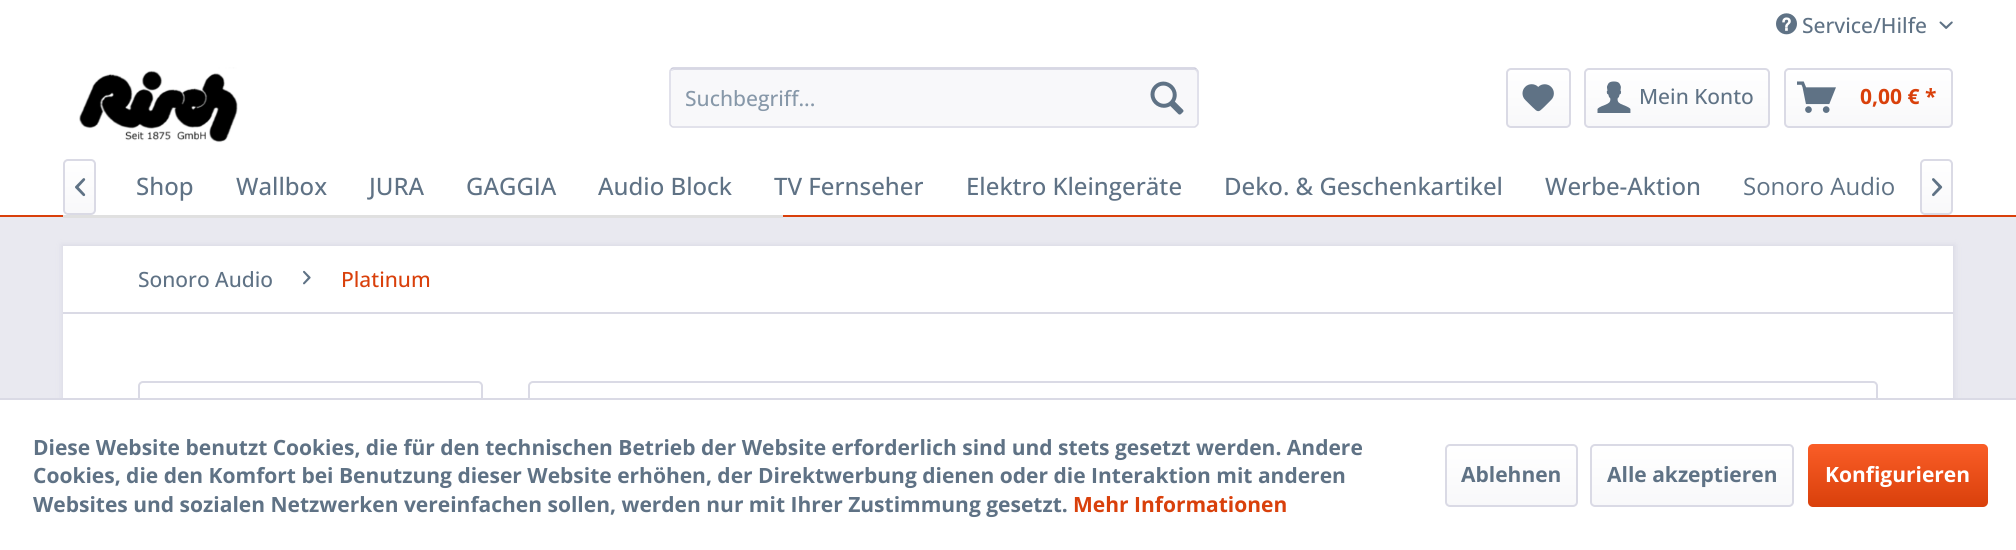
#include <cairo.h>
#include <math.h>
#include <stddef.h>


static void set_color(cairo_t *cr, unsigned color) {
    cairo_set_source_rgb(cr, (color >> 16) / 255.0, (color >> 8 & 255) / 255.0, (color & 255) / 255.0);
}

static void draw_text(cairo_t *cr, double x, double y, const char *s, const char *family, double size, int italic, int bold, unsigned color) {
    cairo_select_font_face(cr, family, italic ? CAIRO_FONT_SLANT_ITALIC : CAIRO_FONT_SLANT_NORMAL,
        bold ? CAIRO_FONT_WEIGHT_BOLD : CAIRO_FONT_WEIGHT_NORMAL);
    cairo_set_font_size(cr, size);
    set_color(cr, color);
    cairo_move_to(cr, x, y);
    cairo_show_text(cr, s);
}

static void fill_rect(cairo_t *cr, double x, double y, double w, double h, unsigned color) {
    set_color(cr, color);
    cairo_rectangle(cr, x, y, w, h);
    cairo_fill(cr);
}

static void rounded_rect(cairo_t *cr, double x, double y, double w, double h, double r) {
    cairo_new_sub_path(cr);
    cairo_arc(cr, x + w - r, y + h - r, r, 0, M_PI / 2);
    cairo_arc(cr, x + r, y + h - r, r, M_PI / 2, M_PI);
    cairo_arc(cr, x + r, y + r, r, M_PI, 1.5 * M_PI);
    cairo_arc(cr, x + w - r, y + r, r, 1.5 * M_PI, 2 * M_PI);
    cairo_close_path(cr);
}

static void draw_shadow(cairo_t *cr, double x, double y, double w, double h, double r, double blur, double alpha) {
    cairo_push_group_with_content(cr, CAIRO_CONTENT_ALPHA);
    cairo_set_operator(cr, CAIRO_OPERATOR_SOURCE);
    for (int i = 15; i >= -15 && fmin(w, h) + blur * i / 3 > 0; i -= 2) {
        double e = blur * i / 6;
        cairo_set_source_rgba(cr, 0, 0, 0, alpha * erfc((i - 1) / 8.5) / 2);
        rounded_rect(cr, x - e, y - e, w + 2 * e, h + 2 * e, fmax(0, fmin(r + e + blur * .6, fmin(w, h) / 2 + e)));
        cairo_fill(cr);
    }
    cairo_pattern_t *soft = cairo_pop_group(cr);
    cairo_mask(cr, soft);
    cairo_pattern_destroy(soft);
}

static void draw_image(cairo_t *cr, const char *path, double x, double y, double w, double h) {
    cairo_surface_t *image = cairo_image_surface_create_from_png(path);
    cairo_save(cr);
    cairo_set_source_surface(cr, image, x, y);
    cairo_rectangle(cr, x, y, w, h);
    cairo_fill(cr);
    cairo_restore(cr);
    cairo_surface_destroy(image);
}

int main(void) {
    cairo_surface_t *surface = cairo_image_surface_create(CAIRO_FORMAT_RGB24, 2016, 550);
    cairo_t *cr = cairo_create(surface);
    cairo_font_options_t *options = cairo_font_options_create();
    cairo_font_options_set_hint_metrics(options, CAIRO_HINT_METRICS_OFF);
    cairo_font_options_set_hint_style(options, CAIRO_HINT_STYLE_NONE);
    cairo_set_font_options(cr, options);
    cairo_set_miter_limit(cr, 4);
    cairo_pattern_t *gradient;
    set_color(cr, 0xE9E9F0);
    cairo_paint(cr);
    fill_rect(cr, 0, 0, 2016, 215, 0xFFFFFF);
    draw_image(cr, "assets/img1.png", 1776, 13, 21, 22);
    draw_text(cr, 1802, 33, "Service/Hilfe", "Open Sans Medium", 21, 0, 0, 0x5F7285);
    draw_image(cr, "assets/img2.png", 1939, 21, 14, 8);
    draw_image(cr, "assets/img3.png", 79, 67, 159, 76);
    set_color(cr, 0xF8F8FA);
    rounded_rect(cr, 669, 68, 530, 60, 5);
    cairo_fill(cr);
    set_color(cr, 0xDADAE5);
    cairo_new_path(cr);
    cairo_move_to(cr, 674, 70);
    cairo_line_to(cr, 1194, 70);
    cairo_curve_to(cr, 1196, 70, 1197, 72, 1197, 74);
    cairo_line_to(cr, 1197, 72);
    cairo_curve_to(cr, 1197, 70, 1196, 69, 1194, 69);
    cairo_line_to(cr, 674, 69);
    cairo_curve_to(cr, 673, 69, 671, 70, 671, 71);
    cairo_close_path(cr);
    cairo_fill(cr);
    cairo_new_path(cr);
    cairo_move_to(cr, 671, 69.5);
    cairo_curve_to(cr, 671.5, 68.5, 672.5, 68, 673.5, 68);
    cairo_line_to(cr, 1194, 68);
    cairo_curve_to(cr, 1195, 68, 1196, 68.5, 1196.5, 69.5);
    set_color(cr, 0xCBCBDB);
    cairo_set_line_width(cr, 1.5);
    cairo_stroke(cr);
    cairo_new_path(cr);
    cairo_move_to(cr, 1196.5, 69.5);
    cairo_curve_to(cr, 1197.5, 70, 1198, 71, 1198, 72);
    cairo_line_to(cr, 1198, 123);
    cairo_curve_to(cr, 1198, 124, 1197.5, 125, 1196.5, 125.5);
    cairo_curve_to(cr, 1196, 126.5, 1195, 127, 1194, 127);
    cairo_line_to(cr, 673.5, 127);
    cairo_curve_to(cr, 672.5, 127, 671.5, 126.5, 671, 125.5);
    cairo_curve_to(cr, 670, 125, 670, 124, 670, 123);
    cairo_line_to(cr, 670, 72);
    cairo_curve_to(cr, 670, 71, 670, 70, 671, 69.5);
    set_color(cr, 0xDADAE5);
    cairo_stroke(cr);
    draw_text(cr, 685, 106, "Suchbegriff...", "Open Sans Medium", 21, 0, 0, 0x8798A9);
    draw_image(cr, "assets/img4.png", 1150, 81, 34, 34);
    gradient = cairo_pattern_create_linear(1538, 69, 1538, 126);
    cairo_pattern_add_color_stop_rgba(gradient, 0, 1, 1, 1, 1);
    cairo_pattern_add_color_stop_rgba(gradient, 1, 0.973, 0.973, 0.98, 1);
    cairo_set_source(cr, gradient);
    cairo_pattern_destroy(gradient);
    rounded_rect(cr, 1508, 69, 61, 57, 3);
    cairo_fill(cr);
    rounded_rect(cr, 1507, 69, 63, 58, 4);
    set_color(cr, 0xDADAE5);
    cairo_set_line_width(cr, 2);
    cairo_stroke(cr);
    draw_image(cr, "assets/img5.png", 1522, 84, 32, 28);
    gradient = cairo_pattern_create_linear(1677, 69, 1677, 126);
    cairo_pattern_add_color_stop_rgba(gradient, 0, 1, 1, 1, 1);
    cairo_pattern_add_color_stop_rgba(gradient, 1, 0.973, 0.973, 0.98, 1);
    cairo_set_source(cr, gradient);
    cairo_pattern_destroy(gradient);
    rounded_rect(cr, 1586, 69, 183, 57, 3);
    cairo_fill(cr);
    rounded_rect(cr, 1585, 69, 184, 58, 4);
    set_color(cr, 0xDADAE5);
    cairo_stroke(cr);
    draw_image(cr, "assets/img6.png", 1597, 81, 34, 32);
    draw_text(cr, 1639, 104, "Mein Konto", "Open Sans Medium", 21, 0, 0, 0x5F7285);
    gradient = cairo_pattern_create_linear(1868, 69, 1868, 126);
    cairo_pattern_add_color_stop_rgba(gradient, 0, 1, 1, 1, 1);
    cairo_pattern_add_color_stop_rgba(gradient, 1, 0.973, 0.973, 0.98, 1);
    cairo_set_source(cr, gradient);
    cairo_pattern_destroy(gradient);
    rounded_rect(cr, 1785, 69, 167, 57, 3);
    cairo_fill(cr);
    rounded_rect(cr, 1785, 69, 167, 58, 4);
    set_color(cr, 0xDADAE5);
    cairo_stroke(cr);
    draw_image(cr, "assets/img7.png", 1797, 81, 39, 32);
    draw_text(cr, 1860, 104, "0,00 € *", "Open Sans", 21, 0, 1, 0xD9400B);
    fill_rect(cr, 0, 215, 2016, 2, 0xD9400B);
    gradient = cairo_pattern_create_linear(80, 161, 80, 213);
    cairo_pattern_add_color_stop_rgba(gradient, 0, 1, 1, 1, 1);
    cairo_pattern_add_color_stop_rgba(gradient, 1, 0.973, 0.973, 0.98, 1);
    cairo_set_source(cr, gradient);
    cairo_pattern_destroy(gradient);
    rounded_rect(cr, 65, 161, 30, 52, 3);
    cairo_fill(cr);
    rounded_rect(cr, 64, 160, 31, 54, 4);
    set_color(cr, 0xDADAE5);
    cairo_stroke(cr);
    draw_image(cr, "assets/img8.png", 75, 178, 11, 19);
    draw_text(cr, 136, 195, "Shop", "Open Sans Medium", 24, 0, 0, 0x5F7285);
    draw_text(cr, 236, 195, "Wallbox", "Open Sans Medium", 24, 0, 0, 0x5F7285);
    draw_text(cr, 369, 195, "JURA", "Open Sans Medium", 24, 0, 0, 0x5F7285);
    draw_text(cr, 466, 195, "GAGGIA", "Open Sans Medium", 24, 0, 0, 0x5F7285);
    draw_text(cr, 598, 195, "Audio Block", "Open Sans Medium", 24, 0, 0, 0x5F7285);
    draw_text(cr, 774, 195, "TV Fernseher", "Open Sans Medium", 24, 0, 0, 0x5F7285);
    draw_text(cr, 966, 195, "Elektro Kleingeräte", "Open Sans Medium", 24, 0, 0, 0x5F7285);
    draw_text(cr, 1224, 195, "Deko. & Geschenkartikel", "Open Sans Medium", 24, 0, 0, 0x5F7285);
    draw_text(cr, 1545, 195, "Werbe-Aktion", "Open Sans Medium", 24, 0, 0, 0x5F7285);
    draw_text(cr, 1743, 195, "Sonoro Audio", "Open Sans", 24, 0, 0, 0x5F7285);
    gradient = cairo_pattern_create_linear(1937, 161, 1937, 213);
    cairo_pattern_add_color_stop_rgba(gradient, 0, 1, 1, 1, 1);
    cairo_pattern_add_color_stop_rgba(gradient, 1, 0.973, 0.973, 0.98, 1);
    cairo_set_source(cr, gradient);
    cairo_pattern_destroy(gradient);
    rounded_rect(cr, 1922, 161, 30, 52, 3);
    cairo_fill(cr);
    rounded_rect(cr, 1921, 160, 31, 54, 4);
    set_color(cr, 0xDADAE5);
    cairo_stroke(cr);
    draw_image(cr, "assets/img9.png", 1932, 178, 11, 19);
    fill_rect(cr, 63, 215, 720, 3, 0xE0E0E0);
    set_color(cr, 0xDADAE5);
    draw_shadow(cr, 62, 245, 1893, 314, 0, 3, 1);
    fill_rect(cr, 63, 246, 1890, 152, 0xFFFFFF);
    fill_rect(cr, 63, 312, 1890, 2, 0xDADAE5);
    draw_text(cr, 138, 287, "Sonoro Audio", "Open Sans Medium", 21, 0, 0, 0x5F7285);
    draw_image(cr, "assets/img10.png", 303, 270, 8, 15);
    draw_text(cr, 341, 287, "Platinum", "Open Sans Medium", 21, 0, 0, 0xD9400B);
    rounded_rect(cr, 139, 382, 343, 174, 4);
    set_color(cr, 0xDADAE5);
    cairo_stroke(cr);
    rounded_rect(cr, 529, 382, 1348, 156, 4);
    cairo_stroke(cr);
    fill_rect(cr, 0, 400, 2016, 150, 0xFFFFFF);
    fill_rect(cr, 0, 398, 2016, 2, 0xDADAE5);
    draw_text(cr, 33, 455, "Diese Website benutzt Cookies, die für den technischen Betrieb der Website erforderlich sind und stets gesetzt werden. Andere", "Open Sans", 21, 0, 1, 0x5F7285);
    draw_text(cr, 33, 483, "Cookies, die den Komfort bei Benutzung dieser Website erhöhen, der Direktwerbung dienen oder die Interaktion mit anderen", "Open Sans", 21, 0, 1, 0x5F7285);
    draw_text(cr, 33, 512, "Websites und sozialen Netzwerken vereinfachen sollen, werden nur mit Ihrer Zustimmung gesetzt.", "Open Sans", 21, 0, 1, 0x5F7285);
    draw_text(cr, 1073, 512, "Mehr Informationen", "Open Sans", 21, 0, 1, 0xD9400B);
    gradient = cairo_pattern_create_linear(1511, 446, 1511, 506);
    cairo_pattern_add_color_stop_rgba(gradient, 0, 1, 1, 1, 1);
    cairo_pattern_add_color_stop_rgba(gradient, 1, 0.973, 0.973, 0.98, 1);
    cairo_set_source(cr, gradient);
    cairo_pattern_destroy(gradient);
    rounded_rect(cr, 1446, 446, 131, 60, 3);
    cairo_fill(cr);
    rounded_rect(cr, 1446, 445, 131, 61, 4);
    set_color(cr, 0xDADAE5);
    cairo_stroke(cr);
    draw_text(cr, 1461, 482, "Ablehnen", "Open Sans", 21, 0, 1, 0x5F7285);
    gradient = cairo_pattern_create_linear(1692, 446, 1692, 506);
    cairo_pattern_add_color_stop_rgba(gradient, 0, 1, 1, 1, 1);
    cairo_pattern_add_color_stop_rgba(gradient, 1, 0.973, 0.973, 0.98, 1);
    cairo_set_source(cr, gradient);
    cairo_pattern_destroy(gradient);
    rounded_rect(cr, 1592, 446, 201, 60, 3);
    cairo_fill(cr);
    rounded_rect(cr, 1591, 445, 202, 61, 4);
    set_color(cr, 0xDADAE5);
    cairo_stroke(cr);
    draw_text(cr, 1607, 482, "Alle akzeptieren", "Open Sans", 21, 0, 1, 0x5F7285);
    gradient = cairo_pattern_create_linear(1898, 444, 1898, 507);
    cairo_pattern_add_color_stop_rgba(gradient, 0, 0.98, 0.365, 0.153, 1);
    cairo_pattern_add_color_stop_rgba(gradient, 1, 0.851, 0.251, 0.043, 1);
    cairo_set_source(cr, gradient);
    cairo_pattern_destroy(gradient);
    rounded_rect(cr, 1808, 444, 180, 63, 5);
    cairo_fill(cr);
    draw_text(cr, 1825, 482, "Konfigurieren", "Open Sans", 21, 0, 1, 0xFFFFFF);
    cairo_surface_write_to_png(surface, "output.png");
    cairo_font_options_destroy(options);
    cairo_destroy(cr);
    cairo_surface_destroy(surface);
    return 0;
}
